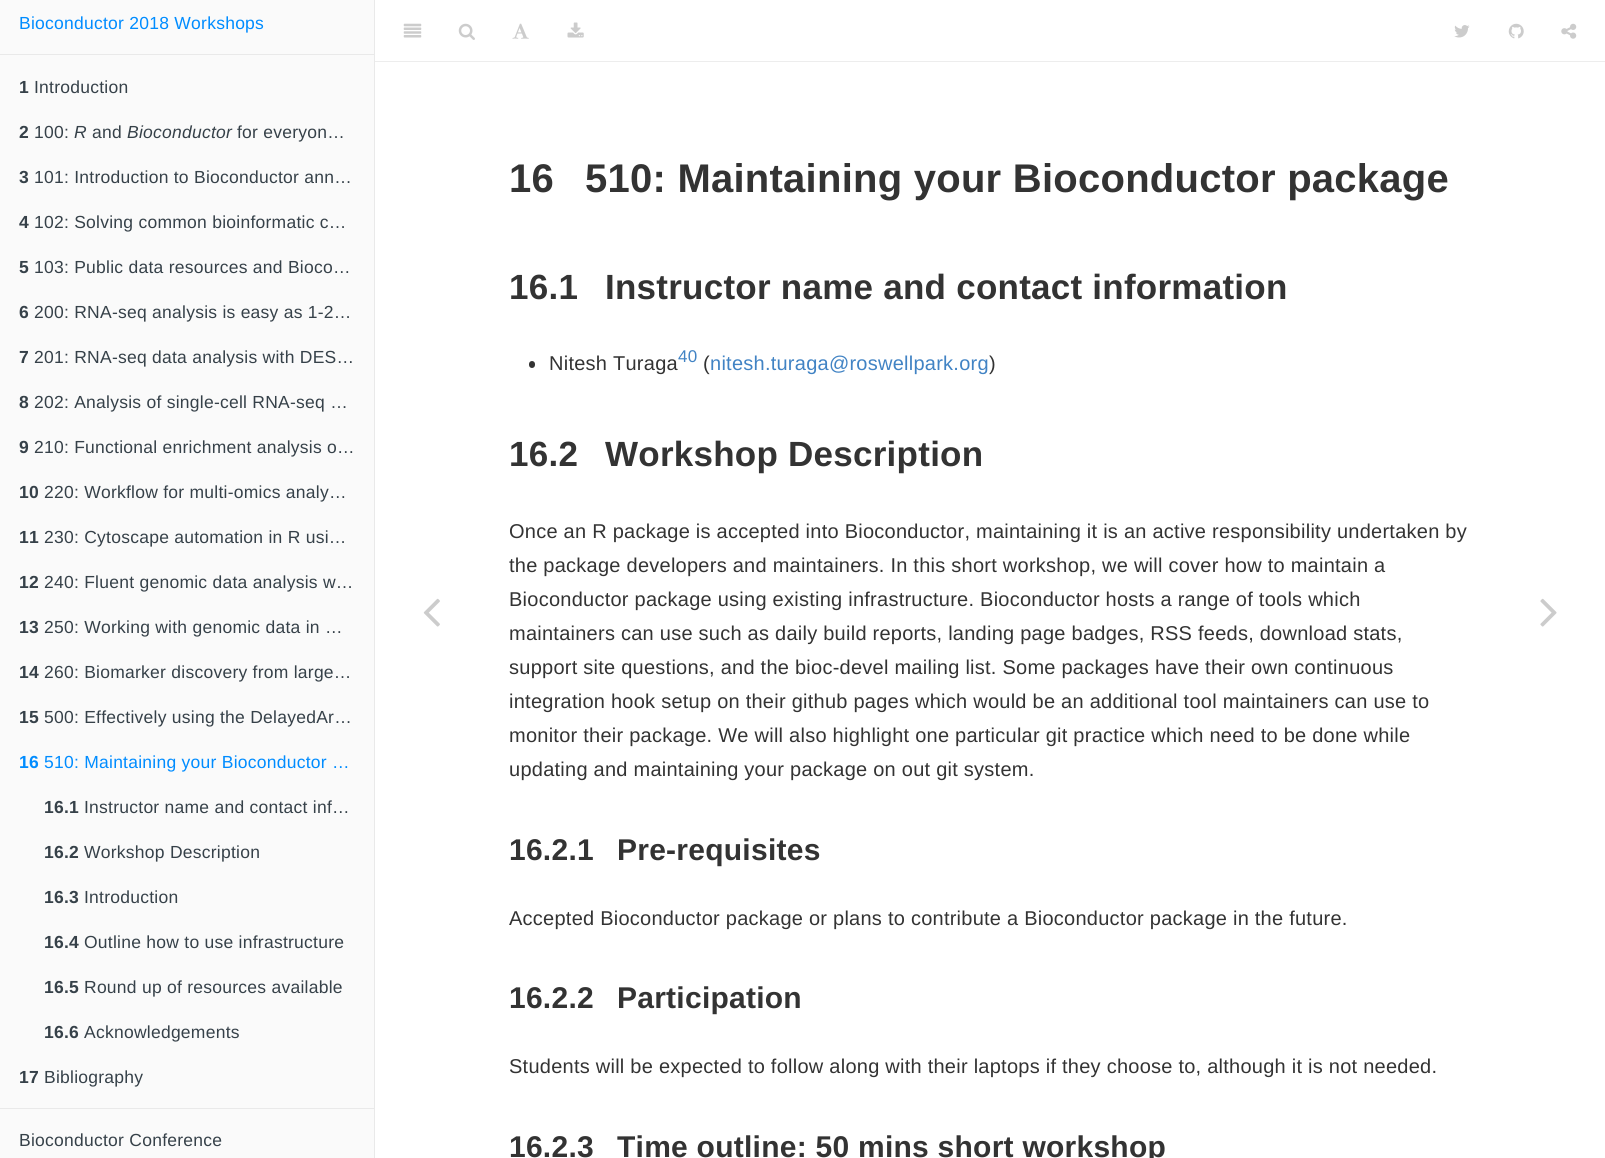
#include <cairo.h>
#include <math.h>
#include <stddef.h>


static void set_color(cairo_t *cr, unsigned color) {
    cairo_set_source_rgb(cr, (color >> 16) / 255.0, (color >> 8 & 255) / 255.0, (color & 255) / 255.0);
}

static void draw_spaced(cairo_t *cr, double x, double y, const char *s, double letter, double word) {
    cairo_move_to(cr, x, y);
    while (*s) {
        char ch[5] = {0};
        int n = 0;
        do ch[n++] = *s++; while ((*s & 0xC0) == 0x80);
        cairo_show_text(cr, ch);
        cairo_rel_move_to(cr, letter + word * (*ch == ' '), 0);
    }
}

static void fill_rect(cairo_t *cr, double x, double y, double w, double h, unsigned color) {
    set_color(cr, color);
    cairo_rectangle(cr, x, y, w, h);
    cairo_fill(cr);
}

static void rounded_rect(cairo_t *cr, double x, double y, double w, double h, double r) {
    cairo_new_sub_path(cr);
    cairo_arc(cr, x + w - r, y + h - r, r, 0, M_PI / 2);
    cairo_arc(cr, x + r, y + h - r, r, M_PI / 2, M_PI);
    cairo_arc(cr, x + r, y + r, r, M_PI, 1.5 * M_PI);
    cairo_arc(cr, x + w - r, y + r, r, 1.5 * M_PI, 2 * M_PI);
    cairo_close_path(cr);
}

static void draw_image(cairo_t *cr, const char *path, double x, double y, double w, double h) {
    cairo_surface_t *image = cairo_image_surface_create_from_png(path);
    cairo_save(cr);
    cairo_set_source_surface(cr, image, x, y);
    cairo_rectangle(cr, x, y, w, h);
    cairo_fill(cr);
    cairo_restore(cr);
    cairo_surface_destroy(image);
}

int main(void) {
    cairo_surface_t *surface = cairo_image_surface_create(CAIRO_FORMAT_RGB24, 1605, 1158);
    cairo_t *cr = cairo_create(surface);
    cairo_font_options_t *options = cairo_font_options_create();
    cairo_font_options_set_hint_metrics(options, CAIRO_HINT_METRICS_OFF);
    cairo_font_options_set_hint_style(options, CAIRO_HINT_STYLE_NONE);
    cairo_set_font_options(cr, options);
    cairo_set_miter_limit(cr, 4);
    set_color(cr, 0xFFFFFF);
    cairo_paint(cr);
    fill_rect(cr, 0, 0, 374, 1158, 0xFAFAFA);
    fill_rect(cr, 374, 0, 1, 1158, 0xE9E9E9);
    cairo_select_font_face(cr, "Liberation Sans", CAIRO_FONT_SLANT_NORMAL, CAIRO_FONT_WEIGHT_NORMAL);
    cairo_set_font_size(cr, 17.5);
    set_color(cr, 0x008CFF);
    draw_spaced(cr, 19, 29, "Bioconductor 2018 Workshops", 0.25, 0);
    fill_rect(cr, 0, 54, 374, 1, 0xE9E9E9);
    cairo_select_font_face(cr, "Liberation Sans", CAIRO_FONT_SLANT_NORMAL, CAIRO_FONT_WEIGHT_BOLD);
    set_color(cr, 0x364149);
    draw_spaced(cr, 19, 93, "1", 0.25, 0);
    cairo_select_font_face(cr, "Liberation Sans", CAIRO_FONT_SLANT_NORMAL, CAIRO_FONT_WEIGHT_NORMAL);
    draw_spaced(cr, 34, 93, "Introduction", 0.25, 0);
    cairo_select_font_face(cr, "Liberation Sans", CAIRO_FONT_SLANT_NORMAL, CAIRO_FONT_WEIGHT_BOLD);
    draw_spaced(cr, 19, 138, "2", 0.25, 0);
    cairo_select_font_face(cr, "Liberation Sans", CAIRO_FONT_SLANT_NORMAL, CAIRO_FONT_WEIGHT_NORMAL);
    draw_spaced(cr, 34, 138, "100:", 0.25, 0);
    cairo_select_font_face(cr, "Liberation Sans", CAIRO_FONT_SLANT_ITALIC, CAIRO_FONT_WEIGHT_NORMAL);
    draw_spaced(cr, 74, 138, "R", 0.25, 0);
    cairo_select_font_face(cr, "Liberation Sans", CAIRO_FONT_SLANT_NORMAL, CAIRO_FONT_WEIGHT_NORMAL);
    draw_spaced(cr, 92, 138, "and", 0.25, 0);
    cairo_select_font_face(cr, "Liberation Sans", CAIRO_FONT_SLANT_ITALIC, CAIRO_FONT_WEIGHT_NORMAL);
    draw_spaced(cr, 127, 138, "Bioconductor", 0.25, 0);
    cairo_select_font_face(cr, "Liberation Sans", CAIRO_FONT_SLANT_NORMAL, CAIRO_FONT_WEIGHT_NORMAL);
    draw_spaced(cr, 237, 138, "for everyon…", 0.25, 0);
    cairo_select_font_face(cr, "Liberation Sans", CAIRO_FONT_SLANT_NORMAL, CAIRO_FONT_WEIGHT_BOLD);
    draw_spaced(cr, 19, 183, "3", 0.25, 0);
    cairo_select_font_face(cr, "Liberation Sans", CAIRO_FONT_SLANT_NORMAL, CAIRO_FONT_WEIGHT_NORMAL);
    draw_spaced(cr, 34, 183, "101: Introduction to Bioconductor ann…", 0.25, 0);
    cairo_select_font_face(cr, "Liberation Sans", CAIRO_FONT_SLANT_NORMAL, CAIRO_FONT_WEIGHT_BOLD);
    draw_spaced(cr, 19, 228, "4", 0.25, 0);
    cairo_select_font_face(cr, "Liberation Sans", CAIRO_FONT_SLANT_NORMAL, CAIRO_FONT_WEIGHT_NORMAL);
    draw_spaced(cr, 34, 228, "102: Solving common bioinformatic c…", 0.25, 0);
    cairo_select_font_face(cr, "Liberation Sans", CAIRO_FONT_SLANT_NORMAL, CAIRO_FONT_WEIGHT_BOLD);
    draw_spaced(cr, 19, 273, "5", 0.25, 0);
    cairo_select_font_face(cr, "Liberation Sans", CAIRO_FONT_SLANT_NORMAL, CAIRO_FONT_WEIGHT_NORMAL);
    draw_spaced(cr, 34, 273, "103: Public data resources and Bioco…", 0.25, 0);
    cairo_select_font_face(cr, "Liberation Sans", CAIRO_FONT_SLANT_NORMAL, CAIRO_FONT_WEIGHT_BOLD);
    draw_spaced(cr, 19, 318, "6", 0.25, 0);
    cairo_select_font_face(cr, "Liberation Sans", CAIRO_FONT_SLANT_NORMAL, CAIRO_FONT_WEIGHT_NORMAL);
    draw_spaced(cr, 34, 318, "200: RNA-seq analysis is easy as 1-2…", 0.25, 0);
    cairo_select_font_face(cr, "Liberation Sans", CAIRO_FONT_SLANT_NORMAL, CAIRO_FONT_WEIGHT_BOLD);
    draw_spaced(cr, 19, 363, "7", 0.25, 0);
    cairo_select_font_face(cr, "Liberation Sans", CAIRO_FONT_SLANT_NORMAL, CAIRO_FONT_WEIGHT_NORMAL);
    draw_spaced(cr, 34, 363, "201: RNA-seq data analysis with DES…", 0.25, 0);
    cairo_select_font_face(cr, "Liberation Sans", CAIRO_FONT_SLANT_NORMAL, CAIRO_FONT_WEIGHT_BOLD);
    draw_spaced(cr, 19, 408, "8", 0.25, 0);
    cairo_select_font_face(cr, "Liberation Sans", CAIRO_FONT_SLANT_NORMAL, CAIRO_FONT_WEIGHT_NORMAL);
    draw_spaced(cr, 34, 408, "202: Analysis of single-cell RNA-seq …", 0.25, 0);
    cairo_select_font_face(cr, "Liberation Sans", CAIRO_FONT_SLANT_NORMAL, CAIRO_FONT_WEIGHT_BOLD);
    draw_spaced(cr, 19, 453, "9", 0.25, 0);
    cairo_select_font_face(cr, "Liberation Sans", CAIRO_FONT_SLANT_NORMAL, CAIRO_FONT_WEIGHT_NORMAL);
    draw_spaced(cr, 34, 453, "210: Functional enrichment analysis o…", 0.25, 0);
    cairo_select_font_face(cr, "Liberation Sans", CAIRO_FONT_SLANT_NORMAL, CAIRO_FONT_WEIGHT_BOLD);
    draw_spaced(cr, 19, 498, "10", 0.25, 0);
    cairo_select_font_face(cr, "Liberation Sans", CAIRO_FONT_SLANT_NORMAL, CAIRO_FONT_WEIGHT_NORMAL);
    draw_spaced(cr, 44, 498, "220: Workflow for multi-omics analy…", 0.25, 0);
    cairo_select_font_face(cr, "Liberation Sans", CAIRO_FONT_SLANT_NORMAL, CAIRO_FONT_WEIGHT_BOLD);
    draw_spaced(cr, 19, 543, "11", 0.25, 0);
    cairo_select_font_face(cr, "Liberation Sans", CAIRO_FONT_SLANT_NORMAL, CAIRO_FONT_WEIGHT_NORMAL);
    draw_spaced(cr, 44, 543, "230: Cytoscape automation in R usi…", 0.25, 0);
    cairo_select_font_face(cr, "Liberation Sans", CAIRO_FONT_SLANT_NORMAL, CAIRO_FONT_WEIGHT_BOLD);
    draw_spaced(cr, 19, 588, "12", 0.25, 0);
    cairo_select_font_face(cr, "Liberation Sans", CAIRO_FONT_SLANT_NORMAL, CAIRO_FONT_WEIGHT_NORMAL);
    draw_spaced(cr, 44, 588, "240: Fluent genomic data analysis w…", 0.25, 0);
    cairo_select_font_face(cr, "Liberation Sans", CAIRO_FONT_SLANT_NORMAL, CAIRO_FONT_WEIGHT_BOLD);
    draw_spaced(cr, 19, 633, "13", 0.25, 0);
    cairo_select_font_face(cr, "Liberation Sans", CAIRO_FONT_SLANT_NORMAL, CAIRO_FONT_WEIGHT_NORMAL);
    draw_spaced(cr, 44, 633, "250: Working with genomic data in …", 0.25, 0);
    cairo_select_font_face(cr, "Liberation Sans", CAIRO_FONT_SLANT_NORMAL, CAIRO_FONT_WEIGHT_BOLD);
    draw_spaced(cr, 19, 678, "14", 0.25, 0);
    cairo_select_font_face(cr, "Liberation Sans", CAIRO_FONT_SLANT_NORMAL, CAIRO_FONT_WEIGHT_NORMAL);
    draw_spaced(cr, 44, 678, "260: Biomarker discovery from large…", 0.25, 0);
    cairo_select_font_face(cr, "Liberation Sans", CAIRO_FONT_SLANT_NORMAL, CAIRO_FONT_WEIGHT_BOLD);
    draw_spaced(cr, 19, 723, "15", 0.25, 0);
    cairo_select_font_face(cr, "Liberation Sans", CAIRO_FONT_SLANT_NORMAL, CAIRO_FONT_WEIGHT_NORMAL);
    draw_spaced(cr, 44, 723, "500: Effectively using the DelayedAr…", 0.25, 0);
    cairo_select_font_face(cr, "Liberation Sans", CAIRO_FONT_SLANT_NORMAL, CAIRO_FONT_WEIGHT_BOLD);
    set_color(cr, 0x008CFF);
    draw_spaced(cr, 19, 768, "16", 0.25, 0);
    cairo_select_font_face(cr, "Liberation Sans", CAIRO_FONT_SLANT_NORMAL, CAIRO_FONT_WEIGHT_NORMAL);
    draw_spaced(cr, 44, 768, "510: Maintaining your Bioconductor …", 0.25, 0);
    cairo_select_font_face(cr, "Liberation Sans", CAIRO_FONT_SLANT_NORMAL, CAIRO_FONT_WEIGHT_BOLD);
    set_color(cr, 0x364149);
    draw_spaced(cr, 44, 813, "16.1", 0.25, 0);
    cairo_select_font_face(cr, "Liberation Sans", CAIRO_FONT_SLANT_NORMAL, CAIRO_FONT_WEIGHT_NORMAL);
    draw_spaced(cr, 84, 813, "Instructor name and contact inf…", 0.25, 0);
    cairo_select_font_face(cr, "Liberation Sans", CAIRO_FONT_SLANT_NORMAL, CAIRO_FONT_WEIGHT_BOLD);
    draw_spaced(cr, 44, 858, "16.2", 0.25, 0);
    cairo_select_font_face(cr, "Liberation Sans", CAIRO_FONT_SLANT_NORMAL, CAIRO_FONT_WEIGHT_NORMAL);
    draw_spaced(cr, 84, 858, "Workshop Description", 0.25, 0);
    cairo_select_font_face(cr, "Liberation Sans", CAIRO_FONT_SLANT_NORMAL, CAIRO_FONT_WEIGHT_BOLD);
    draw_spaced(cr, 44, 903, "16.3", 0.25, 0);
    cairo_select_font_face(cr, "Liberation Sans", CAIRO_FONT_SLANT_NORMAL, CAIRO_FONT_WEIGHT_NORMAL);
    draw_spaced(cr, 84, 903, "Introduction", 0.25, 0);
    cairo_select_font_face(cr, "Liberation Sans", CAIRO_FONT_SLANT_NORMAL, CAIRO_FONT_WEIGHT_BOLD);
    draw_spaced(cr, 44, 948, "16.4", 0.25, 0);
    cairo_select_font_face(cr, "Liberation Sans", CAIRO_FONT_SLANT_NORMAL, CAIRO_FONT_WEIGHT_NORMAL);
    draw_spaced(cr, 84, 948, "Outline how to use infrastructure", 0.25, 0);
    cairo_select_font_face(cr, "Liberation Sans", CAIRO_FONT_SLANT_NORMAL, CAIRO_FONT_WEIGHT_BOLD);
    draw_spaced(cr, 44, 993, "16.5", 0.25, 0);
    cairo_select_font_face(cr, "Liberation Sans", CAIRO_FONT_SLANT_NORMAL, CAIRO_FONT_WEIGHT_NORMAL);
    draw_spaced(cr, 84, 993, "Round up of resources available", 0.25, 0);
    cairo_select_font_face(cr, "Liberation Sans", CAIRO_FONT_SLANT_NORMAL, CAIRO_FONT_WEIGHT_BOLD);
    draw_spaced(cr, 44, 1038, "16.6", 0.25, 0);
    cairo_select_font_face(cr, "Liberation Sans", CAIRO_FONT_SLANT_NORMAL, CAIRO_FONT_WEIGHT_NORMAL);
    draw_spaced(cr, 84, 1038, "Acknowledgements", 0.25, 0);
    cairo_select_font_face(cr, "Liberation Sans", CAIRO_FONT_SLANT_NORMAL, CAIRO_FONT_WEIGHT_BOLD);
    draw_spaced(cr, 19, 1083, "17", 0.25, 0);
    cairo_select_font_face(cr, "Liberation Sans", CAIRO_FONT_SLANT_NORMAL, CAIRO_FONT_WEIGHT_NORMAL);
    draw_spaced(cr, 44, 1083, "Bibliography", 0.25, 0);
    fill_rect(cr, 0, 1108, 374, 1, 0xE9E9E9);
    set_color(cr, 0x364149);
    draw_spaced(cr, 19, 1146, "Bioconductor Conference", 0.25, 0);
    draw_image(cr, "assets/img1.png", 423, 598, 17, 29);
    fill_rect(cr, 375, 61, 1230, 1, 0xEDEDED);
    draw_image(cr, "assets/img2.png", 403, 23, 19, 15);
    draw_image(cr, "assets/img3.png", 458, 23, 17, 17);
    draw_image(cr, "assets/img4.png", 512, 23, 17, 16);
    draw_image(cr, "assets/img5.png", 567, 22, 17, 16);
    draw_image(cr, "assets/img6.png", 1454, 25, 16, 13);
    draw_image(cr, "assets/img7.png", 1508, 23, 16, 16);
    draw_image(cr, "assets/img8.png", 1561, 23, 16, 16);
    cairo_select_font_face(cr, "Liberation Sans", CAIRO_FONT_SLANT_NORMAL, CAIRO_FONT_WEIGHT_BOLD);
    cairo_set_font_size(cr, 40);
    set_color(cr, 0x333333);
    draw_spaced(cr, 509, 192, "16", 0.25, 0);
    draw_spaced(cr, 585, 192, "510: Maintaining your Bioconductor package", 0.25, 0);
    cairo_set_font_size(cr, 35);
    draw_spaced(cr, 509, 299, "16.1", 0.25, 0);
    draw_spaced(cr, 605, 299, "Instructor name and contact information", 0.25, 0);
    rounded_rect(cr, 529, 361, 6, 7, 3);
    cairo_fill(cr);
    cairo_select_font_face(cr, "Liberation Sans", CAIRO_FONT_SLANT_NORMAL, CAIRO_FONT_WEIGHT_NORMAL);
    cairo_set_font_size(cr, 20);
    draw_spaced(cr, 549, 370, "Nitesh Turaga", 0.25, 0);
    cairo_set_font_size(cr, 17);
    set_color(cr, 0x4183C4);
    draw_spaced(cr, 678, 362, "40", 0.25, 0);
    cairo_set_font_size(cr, 20);
    set_color(cr, 0x333333);
    draw_spaced(cr, 703, 370, "(", 0.25, 0);
    set_color(cr, 0x4183C4);
    draw_spaced(cr, 710, 370, "nitesh.turaga@roswellpark.org", 0.25, 0);
    set_color(cr, 0x333333);
    draw_spaced(cr, 989, 370, ")", 0.25, 0);
    cairo_select_font_face(cr, "Liberation Sans", CAIRO_FONT_SLANT_NORMAL, CAIRO_FONT_WEIGHT_BOLD);
    cairo_set_font_size(cr, 35);
    draw_spaced(cr, 509, 466, "16.2", 0.25, 0);
    draw_spaced(cr, 605, 466, "Workshop Description", 0.25, 0);
    cairo_select_font_face(cr, "Liberation Sans", CAIRO_FONT_SLANT_NORMAL, CAIRO_FONT_WEIGHT_NORMAL);
    cairo_set_font_size(cr, 20);
    draw_spaced(cr, 509, 538, "Once an R package is accepted into Bioconductor, maintaining it is an active responsibility undertaken by", 0.25, 0);
    draw_spaced(cr, 509, 572, "the package developers and maintainers. In this short workshop, we will cover how to maintain a", 0.25, 0);
    draw_spaced(cr, 509, 606, "Bioconductor package using existing infrastructure. Bioconductor hosts a range of tools which", 0.25, 0);
    draw_spaced(cr, 509, 640, "maintainers can use such as daily build reports, landing page badges, RSS feeds, download stats,", 0.25, 0);
    draw_spaced(cr, 509, 674, "support site questions, and the bioc-devel mailing list. Some packages have their own continuous", 0.25, 0);
    draw_spaced(cr, 509, 708, "integration hook setup on their github pages which would be an additional tool maintainers can use to", 0.25, 0);
    draw_spaced(cr, 509, 742, "monitor their package. We will also highlight one particular git practice which need to be done while", 0.25, 0);
    draw_spaced(cr, 509, 776, "updating and maintaining your package on out git system.", 0.25, 0);
    cairo_select_font_face(cr, "Liberation Sans", CAIRO_FONT_SLANT_NORMAL, CAIRO_FONT_WEIGHT_BOLD);
    cairo_set_font_size(cr, 30);
    draw_spaced(cr, 509, 860, "16.2.1", 0.25, 0);
    draw_spaced(cr, 617, 860, "Pre-requisites", 0.25, 0);
    cairo_select_font_face(cr, "Liberation Sans", CAIRO_FONT_SLANT_NORMAL, CAIRO_FONT_WEIGHT_NORMAL);
    cairo_set_font_size(cr, 20);
    draw_spaced(cr, 509, 925, "Accepted Bioconductor package or plans to contribute a Bioconductor package in the future.", 0.25, 0);
    cairo_select_font_face(cr, "Liberation Sans", CAIRO_FONT_SLANT_NORMAL, CAIRO_FONT_WEIGHT_BOLD);
    cairo_set_font_size(cr, 30);
    draw_spaced(cr, 509, 1008, "16.2.2", 0.25, 0);
    draw_spaced(cr, 617, 1008, "Participation", 0.25, 0);
    cairo_select_font_face(cr, "Liberation Sans", CAIRO_FONT_SLANT_NORMAL, CAIRO_FONT_WEIGHT_NORMAL);
    cairo_set_font_size(cr, 20);
    draw_spaced(cr, 509, 1073, "Students will be expected to follow along with their laptops if they choose to, although it is not needed.", 0.25, 0);
    cairo_select_font_face(cr, "Liberation Sans", CAIRO_FONT_SLANT_NORMAL, CAIRO_FONT_WEIGHT_BOLD);
    cairo_set_font_size(cr, 30);
    draw_spaced(cr, 509, 1157, "16.2.3", 0.25, 0);
    draw_spaced(cr, 617, 1157, "Time outline: 50 mins short workshop", 0.25, 0);
    draw_image(cr, "assets/img9.png", 1540, 598, 17, 29);
    cairo_surface_write_to_png(surface, "output.png");
    cairo_font_options_destroy(options);
    cairo_destroy(cr);
    cairo_surface_destroy(surface);
    return 0;
}
